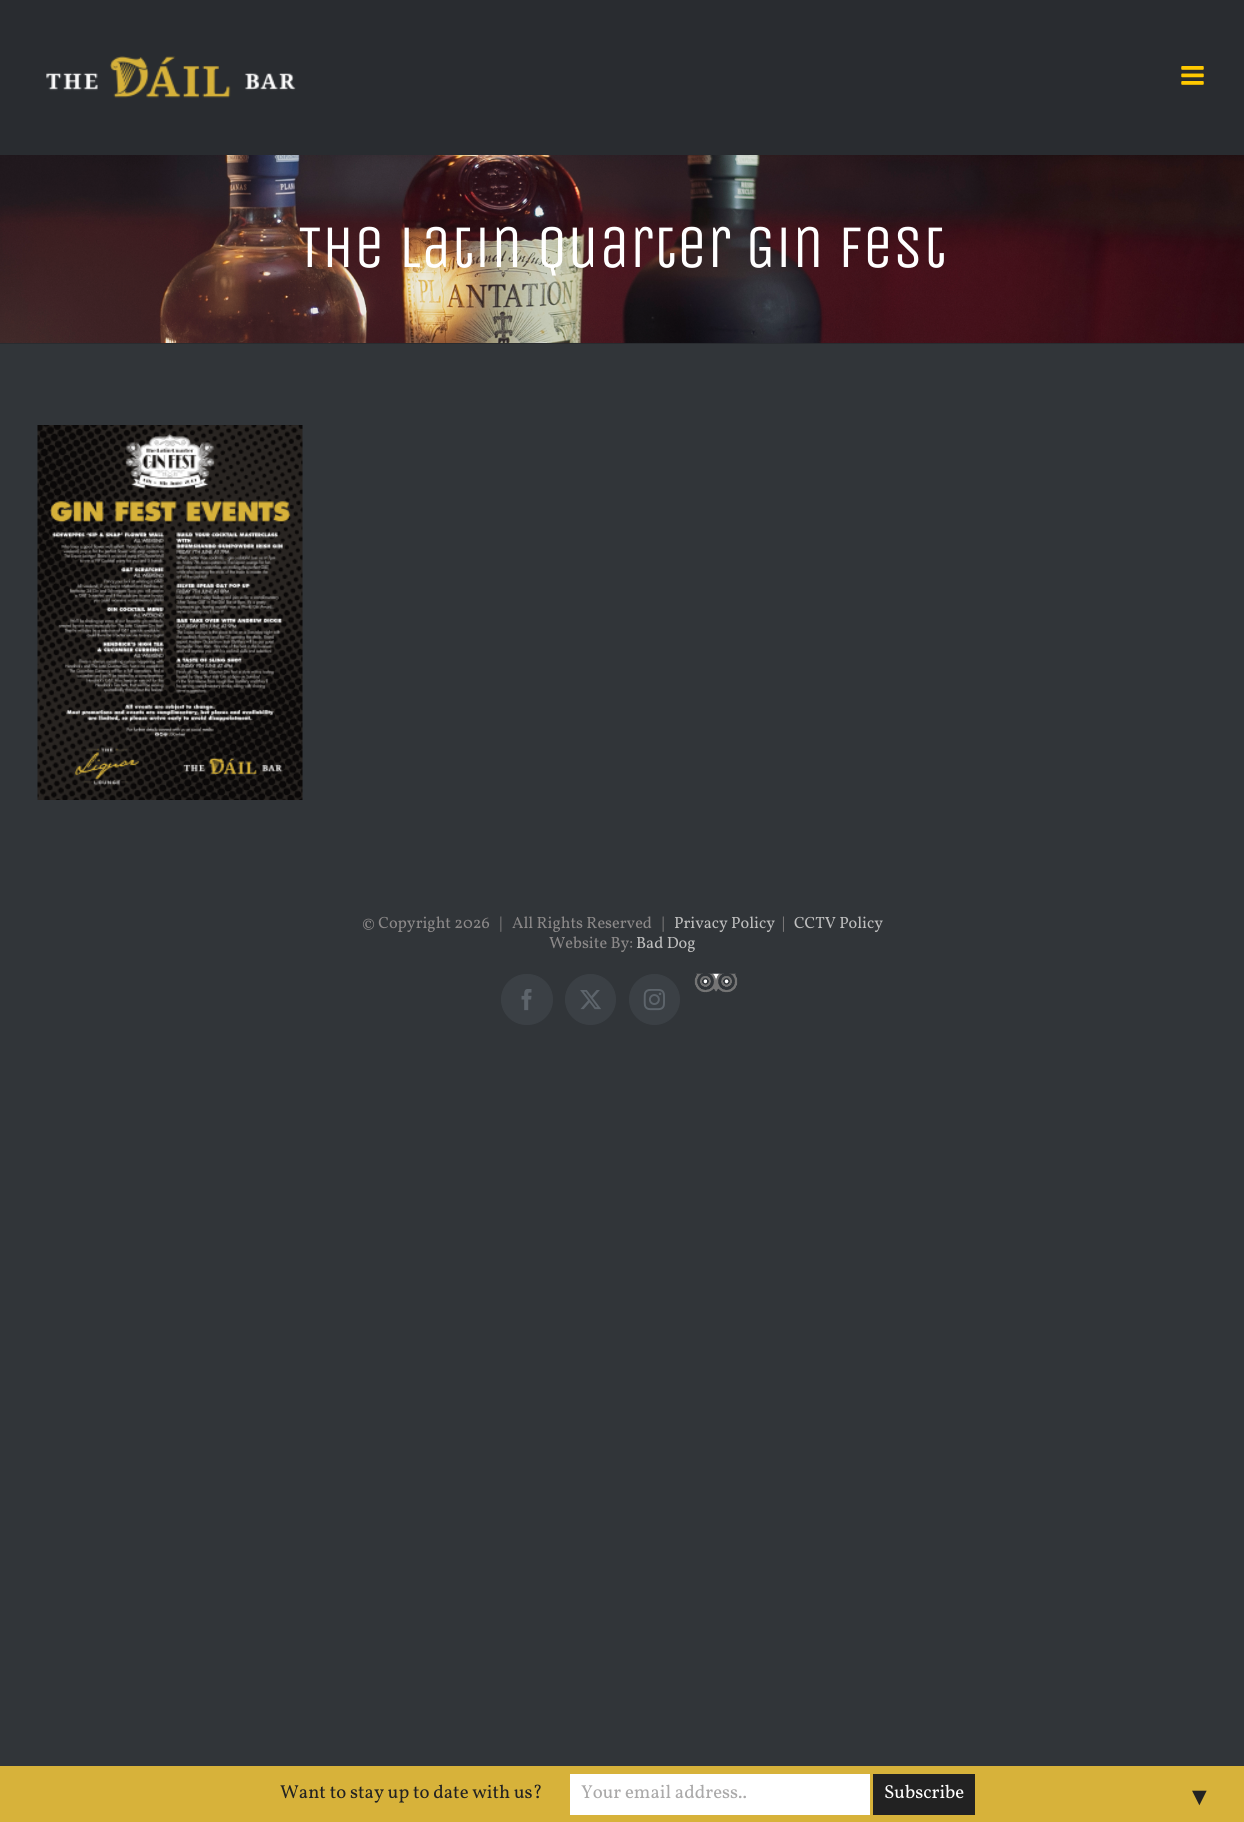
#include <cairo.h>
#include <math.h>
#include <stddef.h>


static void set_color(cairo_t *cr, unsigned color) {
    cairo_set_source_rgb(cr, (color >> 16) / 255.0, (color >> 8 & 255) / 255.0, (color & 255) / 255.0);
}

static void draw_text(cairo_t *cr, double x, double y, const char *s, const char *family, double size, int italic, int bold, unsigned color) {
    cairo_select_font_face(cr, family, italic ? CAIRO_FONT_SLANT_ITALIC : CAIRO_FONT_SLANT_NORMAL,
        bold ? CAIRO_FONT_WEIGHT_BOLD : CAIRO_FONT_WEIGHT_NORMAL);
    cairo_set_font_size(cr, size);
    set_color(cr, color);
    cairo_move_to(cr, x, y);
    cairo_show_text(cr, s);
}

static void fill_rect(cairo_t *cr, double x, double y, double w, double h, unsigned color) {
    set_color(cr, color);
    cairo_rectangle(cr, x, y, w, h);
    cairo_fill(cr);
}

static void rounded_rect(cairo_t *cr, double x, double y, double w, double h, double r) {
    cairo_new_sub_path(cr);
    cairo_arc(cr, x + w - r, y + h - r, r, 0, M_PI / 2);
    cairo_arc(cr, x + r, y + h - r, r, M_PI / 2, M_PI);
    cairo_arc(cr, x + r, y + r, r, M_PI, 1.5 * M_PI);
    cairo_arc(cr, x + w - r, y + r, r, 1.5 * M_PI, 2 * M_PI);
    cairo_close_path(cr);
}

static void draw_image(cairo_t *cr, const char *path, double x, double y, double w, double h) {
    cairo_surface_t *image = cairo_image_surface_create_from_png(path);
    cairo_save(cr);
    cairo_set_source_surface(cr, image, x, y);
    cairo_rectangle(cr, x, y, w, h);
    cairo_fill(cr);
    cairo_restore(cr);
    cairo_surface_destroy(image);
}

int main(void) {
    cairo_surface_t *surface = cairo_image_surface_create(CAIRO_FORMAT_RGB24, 1244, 1822);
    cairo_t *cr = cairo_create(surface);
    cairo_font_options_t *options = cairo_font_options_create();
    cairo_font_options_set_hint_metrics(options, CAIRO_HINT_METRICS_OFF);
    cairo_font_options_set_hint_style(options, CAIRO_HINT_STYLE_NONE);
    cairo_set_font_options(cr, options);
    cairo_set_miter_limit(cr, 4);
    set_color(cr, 0x313539);
    cairo_paint(cr);
    fill_rect(cr, 0, 0, 1244, 155, 0x292C30);
    draw_image(cr, "assets/img1.png", 46, 56, 250, 42);
    draw_image(cr, "assets/img2.png", 1181, 66, 23, 19);
    draw_image(cr, "assets/img3.png", 0, 155, 1244, 188);
    fill_rect(cr, 0, 343, 1244, 1, 0x292C30);
    draw_text(cr, 298, 267, "The Latin Quarter Gin Fest", "Unica One", 60.6, 0, 0, 0xFFFFFF);
    draw_image(cr, "assets/img4.png", 37, 425, 266, 375);
    draw_text(cr, 362, 928, "© Copyright 2026   |   All Rights Reserved   |", "Vollkorn", 16.25, 0, 0, 0x8C8989);
    draw_text(cr, 674, 928, "Privacy Policy", "Vollkorn", 16.25, 0, 0, 0xBFBFBF);
    draw_text(cr, 782, 928, "|", "Vollkorn", 16.25, 0, 0, 0x8C8989);
    draw_text(cr, 794, 928, "CCTV Policy", "Vollkorn", 16.25, 0, 0, 0xBFBFBF);
    draw_text(cr, 549, 948, "Website By:", "Vollkorn", 16.25, 0, 0, 0x8C8989);
    draw_text(cr, 636, 948, "Bad Dog", "Vollkorn", 16.25, 0, 0, 0xBFBFBF);
    set_color(cr, 0x3B4045);
    rounded_rect(cr, 501.5, 974.5, 51, 50, 25);
    cairo_fill_preserve(cr);
    cairo_set_line_width(cr, 1);
    cairo_stroke(cr);
    draw_image(cr, "assets/img5.png", 521, 989, 11, 22);
    cairo_arc(cr, 590.5, 999.5, 25, 0, 2 * M_PI);
    cairo_fill_preserve(cr);
    cairo_stroke(cr);
    draw_image(cr, "assets/img6.png", 580, 990, 21, 20);
    cairo_arc(cr, 654.5, 999.5, 25, 0, 2 * M_PI);
    cairo_fill_preserve(cr);
    cairo_stroke(cr);
    draw_image(cr, "assets/img7.png", 643, 989, 22, 22);
    draw_image(cr, "assets/img8.png", 694, 973, 44, 20);
    fill_rect(cr, 0, 1766, 1244, 56, 0xD7B23A);
    draw_text(cr, 280, 1798, "Want to stay up to date with us?", "Vollkorn", 18.75, 0, 0, 0x222222);
    fill_rect(cr, 570, 1774, 300, 41, 0xFFFFFF);
    draw_text(cr, 581, 1798, "Your email address..", "Vollkorn", 18.75, 0, 0, 0xAAA9A9);
    fill_rect(cr, 873, 1774, 102, 41, 0x222222);
    draw_text(cr, 884, 1798, "Subscribe", "Vollkorn", 18.75, 0, 0, 0xFFFFFF);
    draw_text(cr, 1187, 1805, "▼", "Liberation Sans", 25, 0, 0, 0x222222);
    cairo_surface_write_to_png(surface, "output.png");
    cairo_font_options_destroy(options);
    cairo_destroy(cr);
    cairo_surface_destroy(surface);
    return 0;
}
